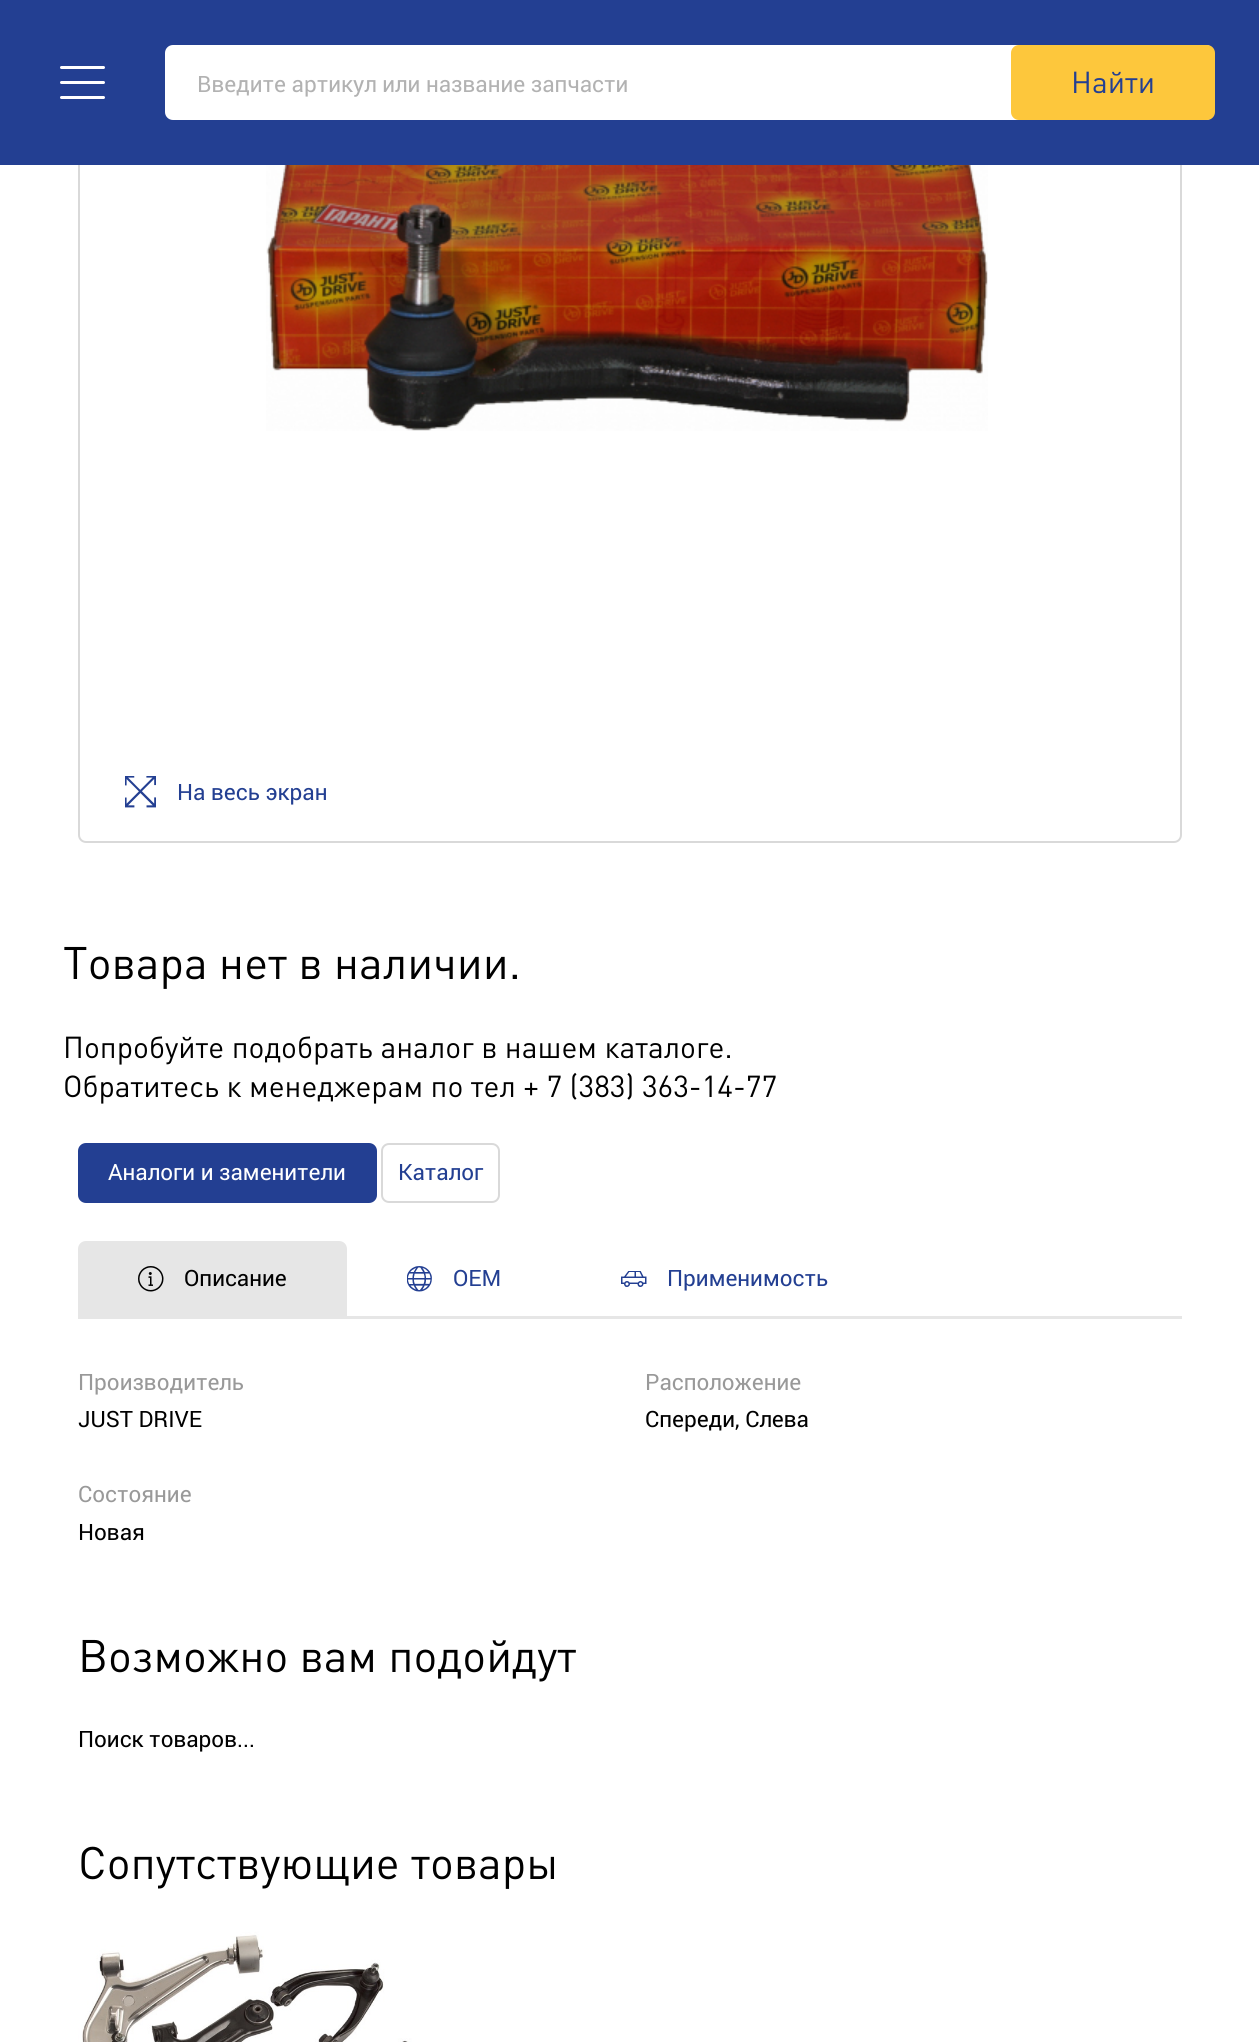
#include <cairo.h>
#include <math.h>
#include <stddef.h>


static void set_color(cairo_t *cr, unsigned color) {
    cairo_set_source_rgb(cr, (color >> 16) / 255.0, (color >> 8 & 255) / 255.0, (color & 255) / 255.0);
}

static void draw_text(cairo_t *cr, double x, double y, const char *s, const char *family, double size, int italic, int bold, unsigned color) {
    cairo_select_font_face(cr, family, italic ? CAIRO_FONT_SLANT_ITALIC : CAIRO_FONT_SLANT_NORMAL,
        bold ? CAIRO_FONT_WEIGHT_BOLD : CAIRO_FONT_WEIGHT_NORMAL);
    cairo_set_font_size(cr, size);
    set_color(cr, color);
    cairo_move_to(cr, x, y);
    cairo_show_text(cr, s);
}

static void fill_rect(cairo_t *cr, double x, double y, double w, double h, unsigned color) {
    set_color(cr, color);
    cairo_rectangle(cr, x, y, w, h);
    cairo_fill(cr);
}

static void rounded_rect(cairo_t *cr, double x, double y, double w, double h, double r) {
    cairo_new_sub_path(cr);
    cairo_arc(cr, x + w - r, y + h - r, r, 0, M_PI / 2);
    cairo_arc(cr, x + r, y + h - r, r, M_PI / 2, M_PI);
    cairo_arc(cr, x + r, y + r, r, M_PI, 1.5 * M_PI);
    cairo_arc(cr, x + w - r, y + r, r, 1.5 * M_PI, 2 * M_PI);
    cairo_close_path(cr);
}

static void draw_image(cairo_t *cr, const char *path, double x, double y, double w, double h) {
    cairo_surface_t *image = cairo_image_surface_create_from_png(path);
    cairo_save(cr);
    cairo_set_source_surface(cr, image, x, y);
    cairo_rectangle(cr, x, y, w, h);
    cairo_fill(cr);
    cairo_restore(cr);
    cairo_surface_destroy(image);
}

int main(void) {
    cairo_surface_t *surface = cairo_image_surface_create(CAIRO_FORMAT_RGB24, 1259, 2042);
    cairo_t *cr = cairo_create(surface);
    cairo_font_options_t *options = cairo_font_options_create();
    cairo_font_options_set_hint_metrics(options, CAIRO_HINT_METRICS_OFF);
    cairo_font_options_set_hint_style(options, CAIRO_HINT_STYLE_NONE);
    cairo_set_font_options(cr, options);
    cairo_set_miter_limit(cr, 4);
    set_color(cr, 0xFFFFFF);
    cairo_paint(cr);
    rounded_rect(cr, 79, -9, 1102, 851, 7);
    set_color(cr, 0xD9D9D9);
    cairo_stroke(cr);
    fill_rect(cr, 0, 0, 1259, 165, 0x233F92);
    set_color(cr, 0xFFFFFF);
    rounded_rect(cr, 60, 81, 45, 3, 1.5);
    cairo_fill(cr);
    rounded_rect(cr, 60, 66, 45, 3, 1.5);
    cairo_fill(cr);
    rounded_rect(cr, 60, 96, 45, 3, 1.5);
    cairo_fill(cr);
    rounded_rect(cr, 166, 46, 1047, 73, 7);
    cairo_fill_preserve(cr);
    cairo_stroke(cr);
    draw_text(cr, 197, 92, "Введите артикул или название запчасти", "Roboto", 22.5, 0, 0, 0xB2B2B2);
    set_color(cr, 0xFDC73C);
    rounded_rect(cr, 1011, 45, 204, 75, 8);
    cairo_fill(cr);
    draw_text(cr, 1071, 93, "Найти", "DIN", 30, 0, 0, 0x233F92);
    draw_image(cr, "assets/img1.png", 266, 165, 722, 266);
    draw_image(cr, "assets/img2.png", 125, 776, 31, 32);
    draw_text(cr, 177, 800, "На весь экран", "Roboto", 22.5, 0, 0, 0x233F92);
    draw_text(cr, 63, 979, "Товара нет в наличии.", "DIN", 45, 0, 0, 0x000000);
    draw_text(cr, 63, 1058, "Попробуйте подобрать аналог в нашем каталоге.", "DIN", 30, 0, 0, 0x000000);
    draw_text(cr, 63, 1097, "Обратитесь к менеджерам по тел + 7 (383) 363-14-77", "DIN", 30, 0, 0, 0x000000);
    set_color(cr, 0x233F92);
    rounded_rect(cr, 78, 1143, 299, 60, 8);
    cairo_fill(cr);
    draw_text(cr, 108, 1180, "Аналоги и заменители", "Roboto", 22.5, 0, 0, 0xFFFFFF);
    rounded_rect(cr, 382, 1144, 117, 58, 7);
    set_color(cr, 0xD9D9D9);
    cairo_stroke(cr);
    draw_text(cr, 398, 1180, "Каталог", "Roboto", 22.5, 0, 0, 0x233F92);
    set_color(cr, 0xE6E6E6);
    cairo_new_path(cr);
    cairo_move_to(cr, 86, 1241);
    cairo_line_to(cr, 339, 1241);
    cairo_curve_to(cr, 343.5, 1241, 347, 1244.5, 347, 1249);
    cairo_line_to(cr, 347, 1316);
    cairo_line_to(cr, 78, 1316);
    cairo_line_to(cr, 78, 1249);
    cairo_curve_to(cr, 78, 1244.5, 81.5, 1241, 86, 1241);
    cairo_close_path(cr);
    cairo_fill(cr);
    draw_image(cr, "assets/img3.png", 138, 1266, 26, 26);
    draw_text(cr, 184, 1286, "Описание", "Roboto", 22.5, 0, 0, 0x000000);
    draw_image(cr, "assets/img4.png", 407, 1266, 25, 26);
    draw_text(cr, 453, 1286, "OEM", "Roboto", 22.5, 0, 0, 0x233F92);
    draw_image(cr, "assets/img5.png", 621, 1271, 26, 16);
    draw_text(cr, 667, 1286, "Применимость", "Roboto", 22.5, 0, 0, 0x233F92);
    fill_rect(cr, 78, 1316, 1104, 3, 0xE6E6E6);
    draw_text(cr, 78, 1390, "Производитель", "Roboto", 22.5, 0, 0, 0x999999);
    draw_text(cr, 78, 1427, "JUST DRIVE", "Roboto", 22.5, 0, 0, 0x000000);
    draw_text(cr, 645, 1390, "Расположение", "Roboto", 22.5, 0, 0, 0x999999);
    draw_text(cr, 645, 1427, "Спереди, Слева", "Roboto", 22.5, 0, 0, 0x000000);
    draw_text(cr, 78, 1502, "Состояние", "Roboto", 22.5, 0, 0, 0x999999);
    draw_text(cr, 78, 1540, "Новая", "Roboto", 22.5, 0, 0, 0x000000);
    draw_text(cr, 78, 1672, "Возможно вам подойдут", "DIN", 45, 0, 0, 0x000000);
    draw_text(cr, 78, 1747, "Поиск товаров...", "Roboto", 22.5, 0, 0, 0x000000);
    draw_text(cr, 78, 1879, "Сопутствующие товары", "DIN", 45, 0, 0, 0x000000);
    draw_image(cr, "assets/img6.png", 78, 1928, 348, 114);
    cairo_surface_write_to_png(surface, "output.png");
    cairo_font_options_destroy(options);
    cairo_destroy(cr);
    cairo_surface_destroy(surface);
    return 0;
}
